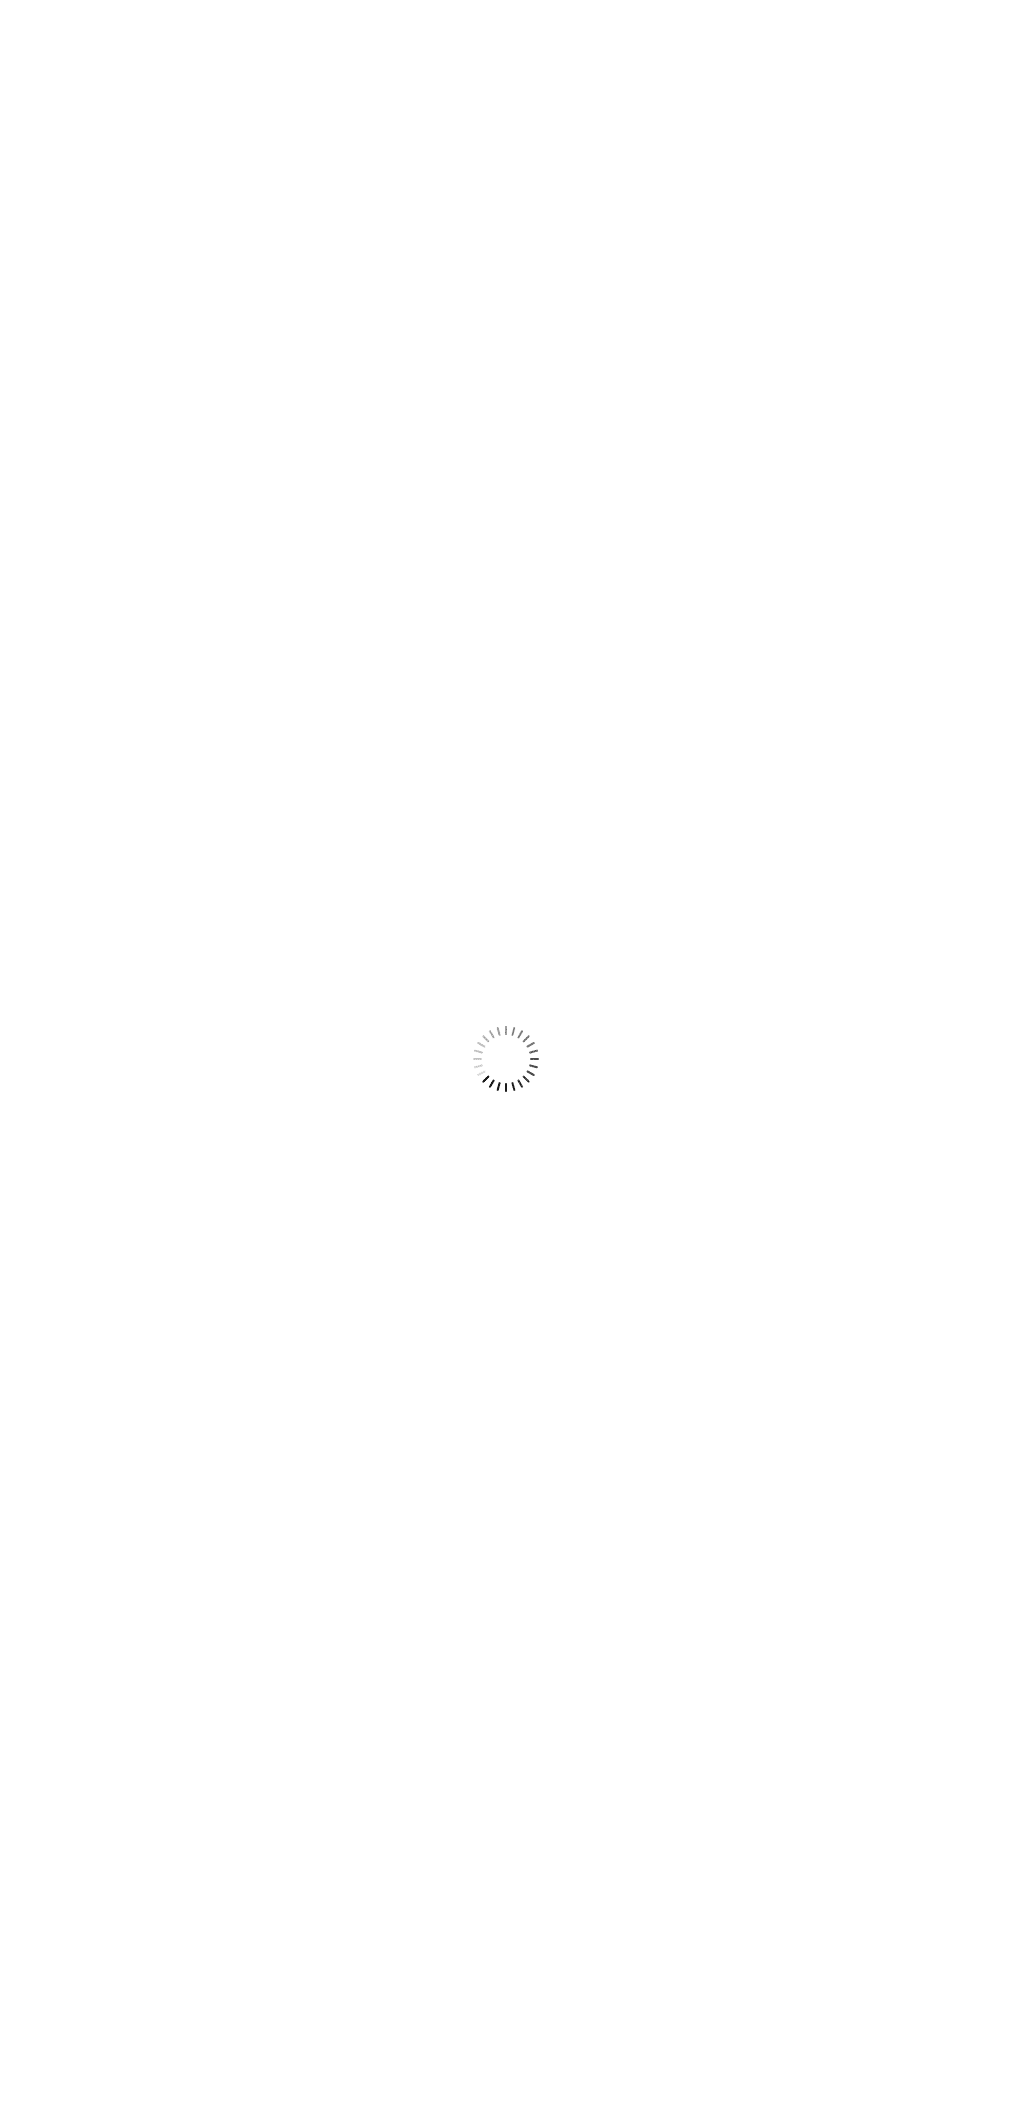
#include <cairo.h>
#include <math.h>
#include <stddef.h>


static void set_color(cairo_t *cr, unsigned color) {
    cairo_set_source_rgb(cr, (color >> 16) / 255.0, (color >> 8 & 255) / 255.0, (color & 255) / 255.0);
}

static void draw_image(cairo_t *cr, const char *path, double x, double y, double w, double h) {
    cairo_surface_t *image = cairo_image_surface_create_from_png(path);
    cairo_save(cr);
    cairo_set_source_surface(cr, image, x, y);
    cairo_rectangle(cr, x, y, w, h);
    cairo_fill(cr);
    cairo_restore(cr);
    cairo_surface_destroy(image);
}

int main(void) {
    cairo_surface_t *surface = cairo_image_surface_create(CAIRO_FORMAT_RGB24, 1011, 2117);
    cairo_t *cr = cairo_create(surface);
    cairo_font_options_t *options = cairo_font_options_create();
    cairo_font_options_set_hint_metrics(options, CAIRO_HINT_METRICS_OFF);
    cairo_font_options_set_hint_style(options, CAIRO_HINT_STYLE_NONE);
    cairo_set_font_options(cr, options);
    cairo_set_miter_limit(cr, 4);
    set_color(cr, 0xFFFFFF);
    cairo_paint(cr);
    draw_image(cr, "assets/img1.png", 473, 1026, 66, 66);
    cairo_surface_write_to_png(surface, "output.png");
    cairo_font_options_destroy(options);
    cairo_destroy(cr);
    cairo_surface_destroy(surface);
    return 0;
}
